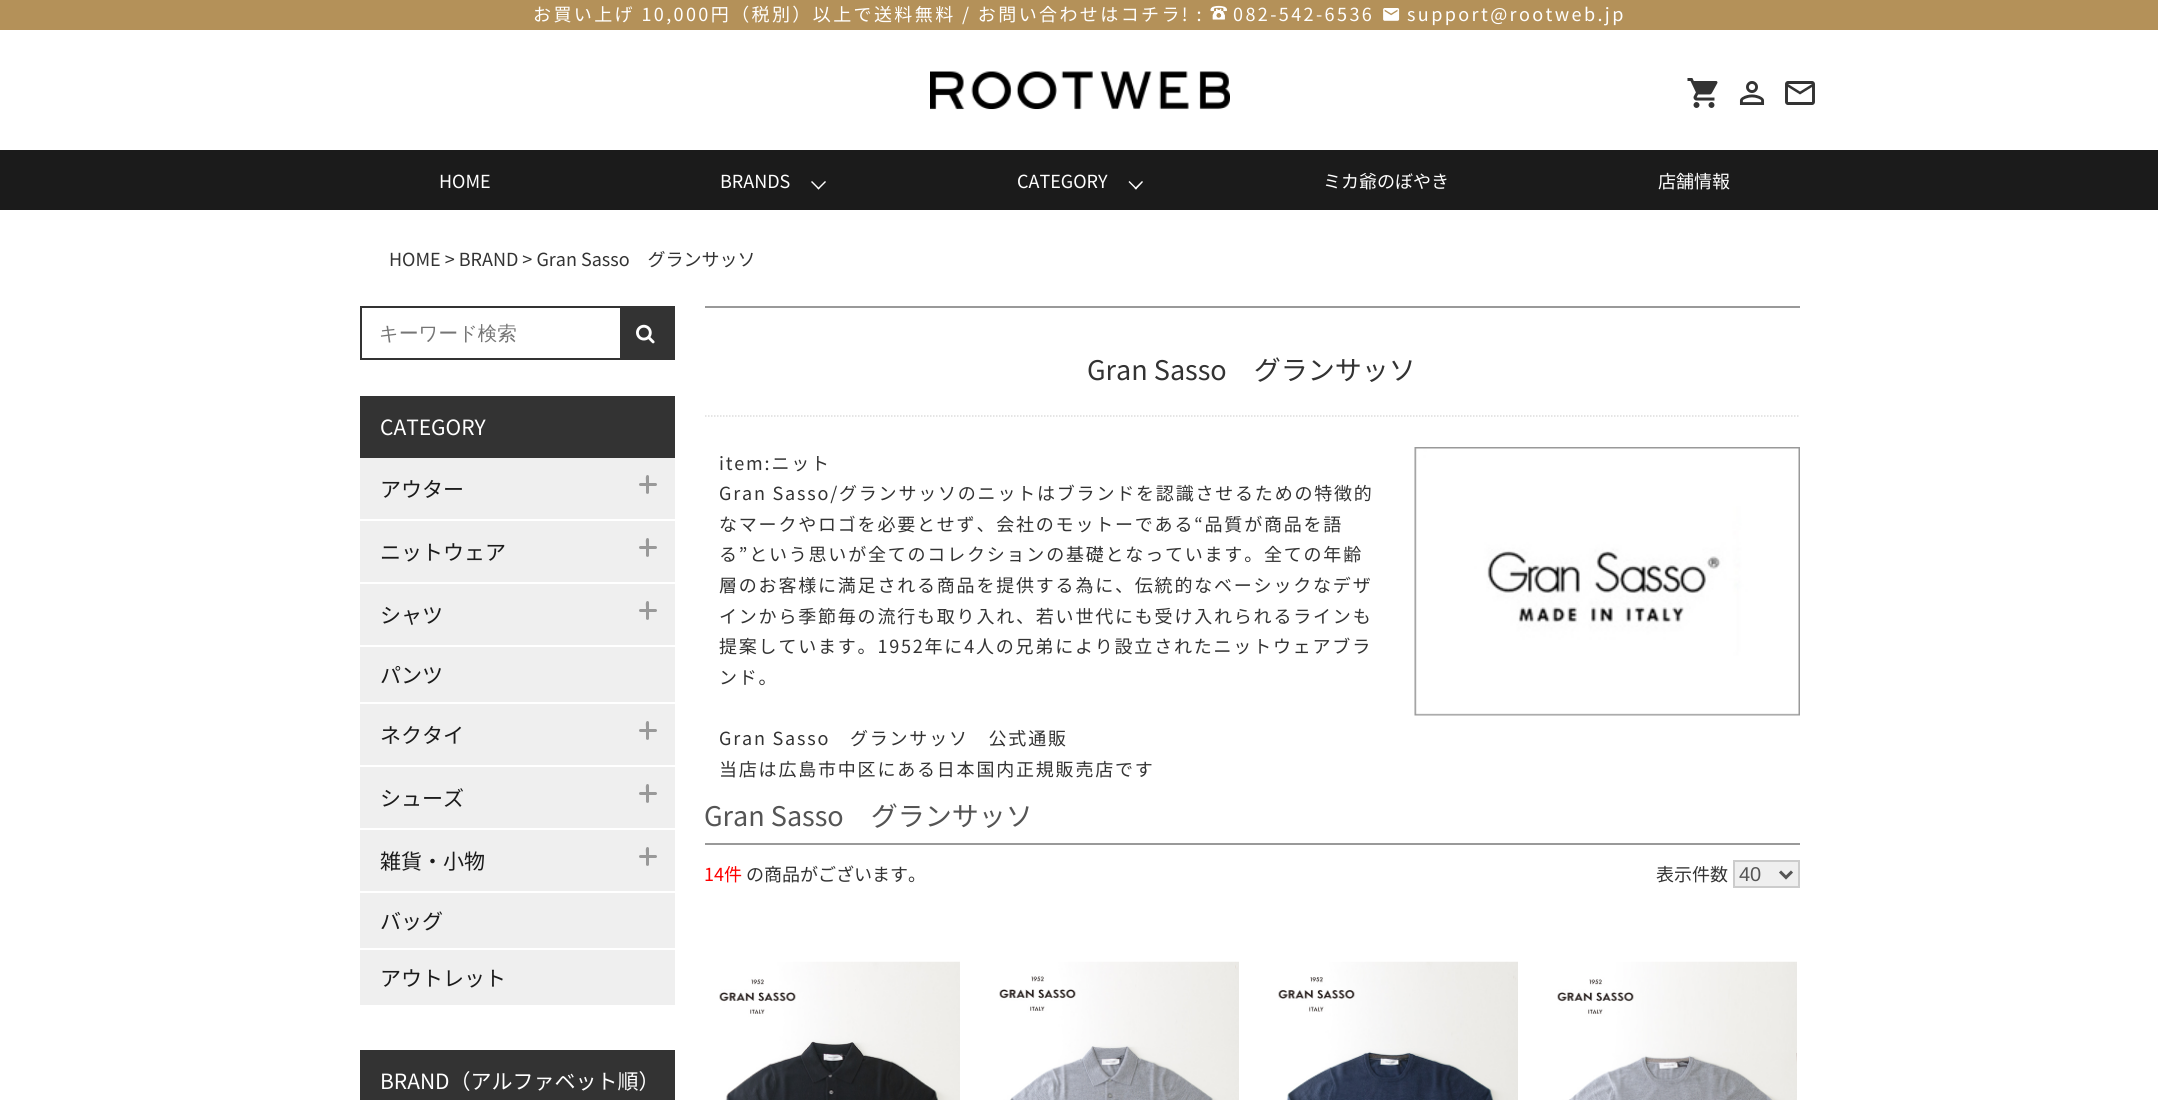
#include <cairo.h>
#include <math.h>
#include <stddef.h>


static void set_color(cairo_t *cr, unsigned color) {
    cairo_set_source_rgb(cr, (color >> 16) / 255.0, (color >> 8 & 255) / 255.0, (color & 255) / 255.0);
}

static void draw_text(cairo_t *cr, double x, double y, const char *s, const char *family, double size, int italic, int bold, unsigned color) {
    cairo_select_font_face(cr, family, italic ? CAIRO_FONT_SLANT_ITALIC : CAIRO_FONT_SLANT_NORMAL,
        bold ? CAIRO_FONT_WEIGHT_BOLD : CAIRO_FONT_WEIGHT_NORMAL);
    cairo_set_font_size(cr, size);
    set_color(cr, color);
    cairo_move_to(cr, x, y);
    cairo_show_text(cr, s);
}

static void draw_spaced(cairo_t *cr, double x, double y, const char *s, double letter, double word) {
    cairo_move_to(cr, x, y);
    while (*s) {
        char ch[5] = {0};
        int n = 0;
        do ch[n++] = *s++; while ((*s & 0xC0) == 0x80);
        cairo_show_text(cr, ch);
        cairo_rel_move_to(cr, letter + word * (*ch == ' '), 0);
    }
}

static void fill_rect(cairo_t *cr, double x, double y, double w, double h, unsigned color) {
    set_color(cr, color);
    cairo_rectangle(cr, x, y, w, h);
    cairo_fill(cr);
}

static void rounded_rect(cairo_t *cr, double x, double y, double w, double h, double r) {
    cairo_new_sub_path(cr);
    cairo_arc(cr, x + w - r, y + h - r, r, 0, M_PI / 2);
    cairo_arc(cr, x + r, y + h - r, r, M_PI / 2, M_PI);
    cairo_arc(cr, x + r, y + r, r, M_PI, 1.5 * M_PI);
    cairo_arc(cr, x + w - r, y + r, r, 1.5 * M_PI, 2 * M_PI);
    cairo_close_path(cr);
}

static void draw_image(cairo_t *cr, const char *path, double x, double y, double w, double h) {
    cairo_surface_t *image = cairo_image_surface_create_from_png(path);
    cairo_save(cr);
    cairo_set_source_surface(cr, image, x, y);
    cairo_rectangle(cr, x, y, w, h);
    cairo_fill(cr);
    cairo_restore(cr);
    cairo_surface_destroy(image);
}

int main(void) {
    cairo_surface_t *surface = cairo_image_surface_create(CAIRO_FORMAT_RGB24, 2158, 1100);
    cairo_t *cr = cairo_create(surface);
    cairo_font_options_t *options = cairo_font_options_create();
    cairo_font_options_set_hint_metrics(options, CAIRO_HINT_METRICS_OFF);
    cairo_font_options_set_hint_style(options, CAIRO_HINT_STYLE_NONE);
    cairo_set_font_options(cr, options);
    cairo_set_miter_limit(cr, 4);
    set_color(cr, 0xFFFFFF);
    cairo_paint(cr);
    fill_rect(cr, 0, 0, 2158, 30, 0xB49159);
    cairo_select_font_face(cr, "Noto Sans JP", CAIRO_FONT_SLANT_NORMAL, CAIRO_FONT_WEIGHT_NORMAL);
    cairo_set_font_size(cr, 18);
    set_color(cr, 0xFFFFFF);
    draw_spaced(cr, 533, 21, "お買い上げ 10,000円（税別）以上で送料無料 / お問い合わせはコチラ! :", 2.4, 0);
    draw_image(cr, "assets/img1.png", 1210, 5, 17, 15);
    draw_spaced(cr, 1233, 21, "082-542-6536", 2.4, 0);
    draw_image(cr, "assets/img2.png", 1383, 8, 17, 13);
    draw_spaced(cr, 1407, 21, "support@rootweb.jp", 2.4, 0);
    draw_image(cr, "assets/img3.png", 930, 71, 300, 39);
    draw_image(cr, "assets/img4.png", 1687, 78, 31, 30);
    draw_image(cr, "assets/img5.png", 1739, 81, 26, 24);
    draw_image(cr, "assets/img6.png", 1785, 81, 30, 24);
    fill_rect(cr, 0, 150, 2158, 60, 0x1B1B1B);
    draw_text(cr, 439, 188, "HOME", "Noto Sans JP", 18, 0, 0, 0xFFFFFF);
    draw_text(cr, 720, 188, "BRANDS", "Noto Sans JP", 18, 0, 0, 0xFFFFFF);
    cairo_new_path(cr);
    cairo_move_to(cr, 825, 181);
    cairo_line_to(cr, 826, 182);
    cairo_line_to(cr, 818.5, 189.5);
    cairo_line_to(cr, 817.5, 188.5);
    cairo_close_path(cr);
    cairo_fill(cr);
    cairo_new_path(cr);
    cairo_move_to(cr, 812, 181);
    cairo_line_to(cr, 819.5, 188.5);
    cairo_line_to(cr, 818.5, 189.5);
    cairo_line_to(cr, 811, 182);
    cairo_close_path(cr);
    cairo_fill(cr);
    draw_text(cr, 1017, 188, "CATEGORY", "Noto Sans JP", 18, 0, 0, 0xFFFFFF);
    cairo_new_path(cr);
    cairo_move_to(cr, 1142, 181);
    cairo_line_to(cr, 1143, 182);
    cairo_line_to(cr, 1136, 189.5);
    cairo_line_to(cr, 1134.5, 188.5);
    cairo_close_path(cr);
    cairo_fill(cr);
    cairo_new_path(cr);
    cairo_move_to(cr, 1129.5, 181);
    cairo_line_to(cr, 1137, 188.5);
    cairo_line_to(cr, 1136, 189.5);
    cairo_line_to(cr, 1128.5, 182);
    cairo_close_path(cr);
    cairo_fill(cr);
    draw_text(cr, 1323, 188, "ミカ爺のぼやき", "Noto Sans JP", 18, 0, 0, 0xFFFFFF);
    draw_text(cr, 1658, 188, "店舗情報", "Noto Sans JP", 18, 0, 0, 0xFFFFFF);
    draw_text(cr, 389, 266, "HOME > BRAND > Gran Sasso　グランサッソ", "Noto Sans JP", 18, 0, 0, 0x333333);
    cairo_rectangle(cr, 361, 307, 313, 52);
    cairo_stroke(cr);
    draw_text(cr, 379, 340, "キーワード検索", "WenQuanYi Zen Hei Medium", 19.5, 0, 0, 0x757575);
    fill_rect(cr, 620, 308, 53, 50, 0x333333);
    draw_image(cr, "assets/img7.png", 636, 324, 19, 20);
    fill_rect(cr, 360, 396, 315, 62, 0x333333);
    draw_text(cr, 380, 435, "CATEGORY", "Noto Sans JP", 21, 0, 0, 0xFFFFFF);
    fill_rect(cr, 360, 458, 315, 61, 0xEFEFEF);
    draw_text(cr, 380, 497, "アウター", "Noto Sans JP", 21, 0, 0, 0x1B1B1B);
    set_color(cr, 0x999999);
    rounded_rect(cr, 639, 483, 18, 3, 1.5);
    cairo_fill(cr);
    cairo_new_path(cr);
    cairo_move_to(cr, 649, 476.5);
    cairo_line_to(cr, 649, 492.5);
    cairo_curve_to(cr, 649, 494, 647, 494.5, 646, 493);
    cairo_line_to(cr, 646, 482);
    cairo_curve_to(cr, 646, 480.5, 645, 475, 647.5, 475);
    cairo_curve_to(cr, 648.5, 475, 649, 476, 649, 476.5);
    cairo_close_path(cr);
    cairo_fill(cr);
    fill_rect(cr, 360, 521, 315, 61, 0xEFEFEF);
    draw_text(cr, 380, 560, "ニットウェア", "Noto Sans JP", 21, 0, 0, 0x1B1B1B);
    set_color(cr, 0x999999);
    rounded_rect(cr, 639, 546, 18, 3, 1.5);
    cairo_fill(cr);
    cairo_new_path(cr);
    cairo_move_to(cr, 649, 539.5);
    cairo_line_to(cr, 649, 555.5);
    cairo_curve_to(cr, 649, 557, 647, 557.5, 646, 556);
    cairo_line_to(cr, 646, 545);
    cairo_curve_to(cr, 646, 543.5, 645, 538, 647.5, 538);
    cairo_curve_to(cr, 648.5, 538, 649, 539, 649, 539.5);
    cairo_close_path(cr);
    cairo_fill(cr);
    fill_rect(cr, 360, 584, 315, 61, 0xEFEFEF);
    draw_text(cr, 380, 623, "シャツ", "Noto Sans JP", 21, 0, 0, 0x1B1B1B);
    set_color(cr, 0x999999);
    rounded_rect(cr, 639, 609, 18, 3, 1.5);
    cairo_fill(cr);
    cairo_new_path(cr);
    cairo_move_to(cr, 649, 602.5);
    cairo_line_to(cr, 649, 618.5);
    cairo_curve_to(cr, 649, 620, 647, 620.5, 646, 619);
    cairo_line_to(cr, 646, 608);
    cairo_curve_to(cr, 646, 606.5, 645, 601, 647.5, 601);
    cairo_curve_to(cr, 648.5, 601, 649, 602, 649, 602.5);
    cairo_close_path(cr);
    cairo_fill(cr);
    fill_rect(cr, 360, 647, 315, 55, 0xEFEFEF);
    draw_text(cr, 380, 683, "パンツ", "Noto Sans JP", 21, 0, 0, 0x1B1B1B);
    fill_rect(cr, 360, 704, 315, 61, 0xEFEFEF);
    draw_text(cr, 380, 743, "ネクタイ", "Noto Sans JP", 21, 0, 0, 0x1B1B1B);
    set_color(cr, 0x999999);
    rounded_rect(cr, 639, 729, 18, 3, 1.5);
    cairo_fill(cr);
    cairo_new_path(cr);
    cairo_move_to(cr, 649, 722.5);
    cairo_line_to(cr, 649, 738.5);
    cairo_curve_to(cr, 649, 740, 647, 740.5, 646, 739);
    cairo_line_to(cr, 646, 728);
    cairo_curve_to(cr, 646, 726.5, 645, 721, 647.5, 721);
    cairo_curve_to(cr, 648.5, 721, 649, 722, 649, 722.5);
    cairo_close_path(cr);
    cairo_fill(cr);
    fill_rect(cr, 360, 767, 315, 61, 0xEFEFEF);
    draw_text(cr, 380, 806, "シューズ", "Noto Sans JP", 21, 0, 0, 0x1B1B1B);
    set_color(cr, 0x999999);
    rounded_rect(cr, 639, 792, 18, 3, 1.5);
    cairo_fill(cr);
    cairo_new_path(cr);
    cairo_move_to(cr, 649, 785.5);
    cairo_line_to(cr, 649, 801.5);
    cairo_curve_to(cr, 649, 803, 647, 803.5, 646, 802);
    cairo_line_to(cr, 646, 791);
    cairo_curve_to(cr, 646, 789.5, 645, 784, 647.5, 784);
    cairo_curve_to(cr, 648.5, 784, 649, 785, 649, 785.5);
    cairo_close_path(cr);
    cairo_fill(cr);
    fill_rect(cr, 360, 830, 315, 61, 0xEFEFEF);
    draw_text(cr, 380, 869, "雑貨・小物", "Noto Sans JP", 21, 0, 0, 0x1B1B1B);
    set_color(cr, 0x999999);
    rounded_rect(cr, 639, 855, 18, 3, 1.5);
    cairo_fill(cr);
    cairo_new_path(cr);
    cairo_move_to(cr, 649, 848.5);
    cairo_line_to(cr, 649, 864.5);
    cairo_curve_to(cr, 649, 866, 647, 866.5, 646, 865);
    cairo_line_to(cr, 646, 854);
    cairo_curve_to(cr, 646, 852.5, 645, 847, 647.5, 847);
    cairo_curve_to(cr, 648.5, 847, 649, 848, 649, 848.5);
    cairo_close_path(cr);
    cairo_fill(cr);
    fill_rect(cr, 360, 893, 315, 55, 0xEFEFEF);
    draw_text(cr, 380, 929, "バッグ", "Noto Sans JP", 21, 0, 0, 0x1B1B1B);
    fill_rect(cr, 360, 950, 315, 55, 0xEFEFEF);
    draw_text(cr, 380, 986, "アウトレット", "Noto Sans JP", 21, 0, 0, 0x1B1B1B);
    fill_rect(cr, 360, 1050, 315, 50, 0x333333);
    draw_text(cr, 380, 1089, "BRAND（アルファベット順）", "Noto Sans JP", 21, 0, 0, 0xFFFFFF);
    fill_rect(cr, 705, 306, 1095, 2, 0x999999);
    cairo_new_path(cr);
    cairo_move_to(cr, 705, 416);
    cairo_line_to(cr, 1800, 416);
    set_color(cr, 0xDDDDDD);
    cairo_set_line_width(cr, 1.5);
    cairo_set_dash(cr, (double[]){1.5, 1.5}, 2, 0);
    cairo_stroke(cr);
    draw_text(cr, 1087, 380, "Gran Sasso　グランサッソ", "Noto Sans JP", 27, 0, 0, 0x333333);
    cairo_set_font_size(cr, 18);
    draw_spaced(cr, 719, 470, "item:ニット", 1.8, 0);
    draw_spaced(cr, 719, 500, "Gran Sasso/グランサッソのニットはブランドを認識させるための特徴的", 1.8, 0);
    draw_spaced(cr, 719, 531, "なマークやロゴを必要とせず、会社のモットーである“品質が商品を語", 1.8, 0);
    draw_spaced(cr, 719, 561, "る”という思いが全てのコレクションの基礎となっています。全ての年齢", 1.8, 0);
    draw_spaced(cr, 719, 592, "層のお客様に満足される商品を提供する為に、伝統的なベーシックなデザ", 1.8, 0);
    draw_spaced(cr, 719, 623, "インから季節毎の流行も取り入れ、若い世代にも受け入れられるラインも", 1.8, 0);
    draw_spaced(cr, 719, 653, "提案しています。1952年に4人の兄弟により設立されたニットウェアブラ", 1.8, 0);
    draw_spaced(cr, 719, 684, "ンド。", 1.8, 0);
    draw_spaced(cr, 719, 745, "Gran Sasso　グランサッソ　公式通販", 1.8, 0);
    draw_spaced(cr, 719, 776, "当店は広島市中区にある日本国内正規販売店です", 1.8, 0);
    draw_image(cr, "assets/img8.png", 1414, 447, 386, 269);
    fill_rect(cr, 705, 843, 1095, 2, 0x999999);
    draw_text(cr, 704, 826, "Gran Sasso　グランサッソ", "Noto Sans JP", 27, 0, 0, 0x555555);
    draw_text(cr, 704, 881, "14件", "Noto Sans JP", 18, 0, 0, 0xFF0000);
    draw_text(cr, 746, 881, "の商品がございます。", "Noto Sans JP", 18, 0, 0, 0x333333);
    draw_text(cr, 1656, 881, "表示件数", "Noto Sans JP", 18, 0, 0, 0x333333);
    set_color(cr, 0xEFEFEF);
    cairo_rectangle(cr, 1734, 861, 65, 26);
    cairo_fill_preserve(cr);
    set_color(cr, 0xCCCCCC);
    cairo_set_line_width(cr, 2);
    cairo_set_dash(cr, NULL, 0, 0);
    cairo_stroke(cr);
    cairo_new_path(cr);
    cairo_move_to(cr, 1780, 871.5);
    cairo_line_to(cr, 1786, 877.5);
    cairo_line_to(cr, 1792, 871.5);
    set_color(cr, 0x555555);
    cairo_set_line_width(cr, 3);
    cairo_stroke(cr);
    draw_text(cr, 1739, 881, "40", "Liberation Sans", 20, 0, 0, 0x555555);
    draw_image(cr, "assets/img9.png", 719, 961, 241, 139);
    draw_image(cr, "assets/img10.png", 999, 961, 240, 139);
    draw_image(cr, "assets/img11.png", 1278, 961, 240, 139);
    draw_image(cr, "assets/img12.png", 1557, 961, 240, 139);
    cairo_surface_write_to_png(surface, "output.png");
    cairo_font_options_destroy(options);
    cairo_destroy(cr);
    cairo_surface_destroy(surface);
    return 0;
}
